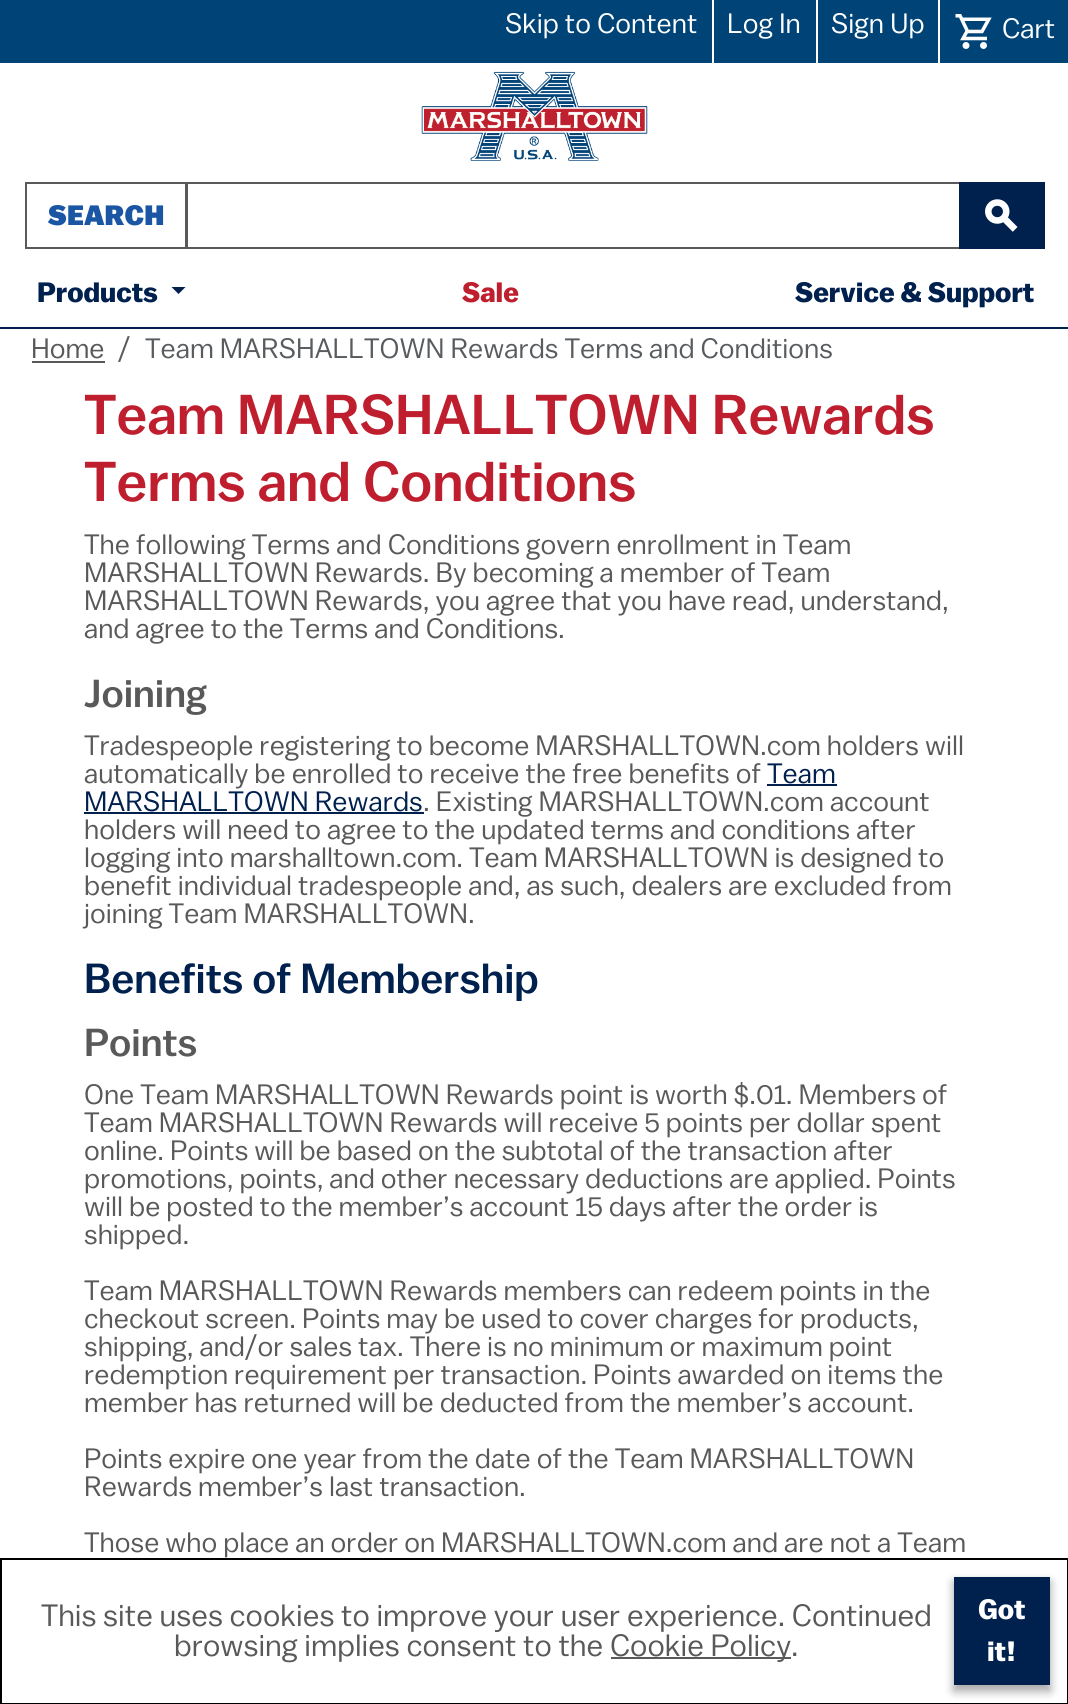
#include <cairo.h>
#include <math.h>
#include <stddef.h>


static void set_color(cairo_t *cr, unsigned color) {
    cairo_set_source_rgb(cr, (color >> 16) / 255.0, (color >> 8 & 255) / 255.0, (color & 255) / 255.0);
}

static void draw_text(cairo_t *cr, double x, double y, const char *s, const char *family, double size, int italic, int bold, unsigned color) {
    cairo_select_font_face(cr, family, italic ? CAIRO_FONT_SLANT_ITALIC : CAIRO_FONT_SLANT_NORMAL,
        bold ? CAIRO_FONT_WEIGHT_BOLD : CAIRO_FONT_WEIGHT_NORMAL);
    cairo_set_font_size(cr, size);
    set_color(cr, color);
    cairo_move_to(cr, x, y);
    cairo_show_text(cr, s);
}

static void fill_rect(cairo_t *cr, double x, double y, double w, double h, unsigned color) {
    set_color(cr, color);
    cairo_rectangle(cr, x, y, w, h);
    cairo_fill(cr);
}

static void rounded_rect(cairo_t *cr, double x, double y, double w, double h, double r) {
    cairo_new_sub_path(cr);
    cairo_arc(cr, x + w - r, y + h - r, r, 0, M_PI / 2);
    cairo_arc(cr, x + r, y + h - r, r, M_PI / 2, M_PI);
    cairo_arc(cr, x + r, y + r, r, M_PI, 1.5 * M_PI);
    cairo_arc(cr, x + w - r, y + r, r, 1.5 * M_PI, 2 * M_PI);
    cairo_close_path(cr);
}

static void draw_shadow(cairo_t *cr, double x, double y, double w, double h, double r, double blur, double alpha) {
    cairo_push_group_with_content(cr, CAIRO_CONTENT_ALPHA);
    cairo_set_operator(cr, CAIRO_OPERATOR_SOURCE);
    for (int i = 15; i >= -15 && fmin(w, h) + blur * i / 3 > 0; i -= 2) {
        double e = blur * i / 6;
        cairo_set_source_rgba(cr, 0, 0, 0, alpha * erfc((i - 1) / 8.5) / 2);
        rounded_rect(cr, x - e, y - e, w + 2 * e, h + 2 * e, fmax(0, fmin(r + e + blur * .6, fmin(w, h) / 2 + e)));
        cairo_fill(cr);
    }
    cairo_pattern_t *soft = cairo_pop_group(cr);
    cairo_mask(cr, soft);
    cairo_pattern_destroy(soft);
}

static void draw_image(cairo_t *cr, const char *path, double x, double y, double w, double h) {
    cairo_surface_t *image = cairo_image_surface_create_from_png(path);
    cairo_save(cr);
    cairo_set_source_surface(cr, image, x, y);
    cairo_rectangle(cr, x, y, w, h);
    cairo_fill(cr);
    cairo_restore(cr);
    cairo_surface_destroy(image);
}

int main(void) {
    cairo_surface_t *surface = cairo_image_surface_create(CAIRO_FORMAT_RGB24, 1068, 1704);
    cairo_t *cr = cairo_create(surface);
    cairo_font_options_t *options = cairo_font_options_create();
    cairo_font_options_set_hint_metrics(options, CAIRO_HINT_METRICS_OFF);
    cairo_font_options_set_hint_style(options, CAIRO_HINT_STYLE_NONE);
    cairo_set_font_options(cr, options);
    cairo_set_miter_limit(cr, 4);
    set_color(cr, 0x004377);
    cairo_paint(cr);
    draw_text(cr, 505, 33, "Skip to Content", "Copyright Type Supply", 28, 0, 0, 0xFFFFFF);
    fill_rect(cr, 712, 0, 2, 63, 0xFFFFFF);
    draw_text(cr, 727, 33, "Log In", "Copyright Type Supply", 28, 0, 0, 0xFFFFFF);
    fill_rect(cr, 816, 0, 2, 63, 0xFFFFFF);
    draw_text(cr, 831, 33, "Sign Up", "Copyright Type Supply", 28, 0, 0, 0xFFFFFF);
    fill_rect(cr, 938, 0, 2, 63, 0xFFFFFF);
    draw_image(cr, "assets/img1.png", 955, 14, 37, 35);
    draw_text(cr, 1002, 38, "Cart", "Copyright Type Supply", 28, 0, 0, 0xFFFFFF);
    fill_rect(cr, 0, 63, 1068, 264, 0xFFFFFF);
    fill_rect(cr, 0, 327, 1068, 2, 0x00204E);
    draw_image(cr, "assets/img2.png", 421, 71, 227, 90);
    cairo_rectangle(cr, 26, 183, 160, 65);
    set_color(cr, 0x595959);
    cairo_stroke(cr);
    draw_text(cr, 48, 225, "SEARCH", "Copyright Type Supply", 28, 0, 1, 0x1A56A3);
    cairo_rectangle(cr, 187, 183, 773, 65);
    set_color(cr, 0x595959);
    cairo_stroke(cr);
    fill_rect(cr, 959, 182, 86, 67, 0x00204E);
    draw_image(cr, "assets/img3.png", 985, 199, 33, 33);
    draw_text(cr, 37, 302, "Products", "Copyright Type Supply SemiBold", 28, 0, 0, 0x00204E);
    cairo_new_path(cr);
    cairo_move_to(cr, 171.5, 287);
    cairo_line_to(cr, 185.5, 287);
    cairo_line_to(cr, 178.5, 294);
    cairo_close_path(cr);
    cairo_fill(cr);
    draw_text(cr, 462, 302, "Sale", "Copyright Type Supply SemiBold", 28, 0, 0, 0xBE1E2D);
    draw_text(cr, 795, 302, "Service & Support", "Copyright Type Supply SemiBold", 28, 0, 0, 0x00204E);
    fill_rect(cr, 0, 329, 1068, 1229, 0xFFFFFF);
    draw_text(cr, 31, 358, "Home", "Copyright Type Supply", 28, 0, 0, 0x595959);
    fill_rect(cr, 32, 361, 73, 2, 0x595959);
    draw_text(cr, 118, 358, "/", "Copyright Type Supply", 28, 0, 0, 0x595C5F);
    draw_text(cr, 145, 358, "Team MARSHALLTOWN Rewards Terms and Conditions", "Copyright Type Supply", 28, 0, 0, 0x595C5F);
    draw_text(cr, 84, 434, "Team MARSHALLTOWN Rewards", "Copyright Type Supply Medium", 56, 0, 0, 0xBE1E2D);
    draw_text(cr, 84, 501, "Terms and Conditions", "Copyright Type Supply Medium", 56, 0, 0, 0xBE1E2D);
    draw_text(cr, 84, 554, "The following Terms and Conditions govern enrollment in Team", "Copyright Type Supply", 28, 0, 0, 0x595959);
    draw_text(cr, 84, 582, "MARSHALLTOWN Rewards. By becoming a member of Team", "Copyright Type Supply", 28, 0, 0, 0x595959);
    draw_text(cr, 84, 610, "MARSHALLTOWN Rewards, you agree that you have read, understand,", "Copyright Type Supply", 28, 0, 0, 0x595959);
    draw_text(cr, 84, 638, "and agree to the Terms and Conditions.", "Copyright Type Supply", 28, 0, 0, 0x595959);
    draw_text(cr, 84, 707, "Joining", "Copyright Type Supply Medium", 39, 0, 0, 0x595959);
    draw_text(cr, 84, 755, "Tradespeople registering to become MARSHALLTOWN.com holders will", "Copyright Type Supply", 28, 0, 0, 0x595959);
    draw_text(cr, 84, 783, "automatically be enrolled to receive the free benefits of", "Copyright Type Supply", 28, 0, 0, 0x595959);
    draw_text(cr, 767, 783, "Team", "Copyright Type Supply", 28, 0, 0, 0x00204E);
    fill_rect(cr, 767, 784, 70, 2, 0x00204E);
    draw_text(cr, 84, 811, "MARSHALLTOWN Rewards", "Copyright Type Supply", 28, 0, 0, 0x00204E);
    fill_rect(cr, 84, 812, 340, 2, 0x00204E);
    draw_text(cr, 423, 811, ". Existing MARSHALLTOWN.com account", "Copyright Type Supply", 28, 0, 0, 0x595959);
    draw_text(cr, 84, 839, "holders will need to agree to the updated terms and conditions after", "Copyright Type Supply", 28, 0, 0, 0x595959);
    draw_text(cr, 84, 867, "logging into marshalltown.com. Team MARSHALLTOWN is designed to", "Copyright Type Supply", 28, 0, 0, 0x595959);
    draw_text(cr, 84, 895, "benefit individual tradespeople and, as such, dealers are excluded from", "Copyright Type Supply", 28, 0, 0, 0x595959);
    draw_text(cr, 84, 923, "joining Team MARSHALLTOWN.", "Copyright Type Supply", 28, 0, 0, 0x595959);
    draw_text(cr, 84, 993, "Benefits of Membership", "Copyright Type Supply Medium", 42, 0, 0, 0x00204E);
    draw_text(cr, 84, 1056, "Points", "Copyright Type Supply Medium", 39, 0, 0, 0x595959);
    draw_text(cr, 84, 1104, "One Team MARSHALLTOWN Rewards point is worth $.01. Members of", "Copyright Type Supply", 28, 0, 0, 0x595959);
    draw_text(cr, 84, 1132, "Team MARSHALLTOWN Rewards will receive 5 points per dollar spent", "Copyright Type Supply", 28, 0, 0, 0x595959);
    draw_text(cr, 84, 1160, "online. Points will be based on the subtotal of the transaction after", "Copyright Type Supply", 28, 0, 0, 0x595959);
    draw_text(cr, 84, 1188, "promotions, points, and other necessary deductions are applied. Points", "Copyright Type Supply", 28, 0, 0, 0x595959);
    draw_text(cr, 84, 1216, "will be posted to the member’s account 15 days after the order is", "Copyright Type Supply", 28, 0, 0, 0x595959);
    draw_text(cr, 84, 1244, "shipped.", "Copyright Type Supply", 28, 0, 0, 0x595959);
    draw_text(cr, 84, 1300, "Team MARSHALLTOWN Rewards members can redeem points in the", "Copyright Type Supply", 28, 0, 0, 0x595959);
    draw_text(cr, 84, 1328, "checkout screen. Points may be used to cover charges for products,", "Copyright Type Supply", 28, 0, 0, 0x595959);
    draw_text(cr, 84, 1356, "shipping, and/or sales tax. There is no minimum or maximum point", "Copyright Type Supply", 28, 0, 0, 0x595959);
    draw_text(cr, 84, 1384, "redemption requirement per transaction. Points awarded on items the", "Copyright Type Supply", 28, 0, 0, 0x595959);
    draw_text(cr, 84, 1412, "member has returned will be deducted from the member’s account.", "Copyright Type Supply", 28, 0, 0, 0x595959);
    draw_text(cr, 84, 1468, "Points expire one year from the date of the Team MARSHALLTOWN", "Copyright Type Supply", 28, 0, 0, 0x595959);
    draw_text(cr, 84, 1496, "Rewards member’s last transaction.", "Copyright Type Supply", 28, 0, 0, 0x595959);
    draw_text(cr, 84, 1552, "Those who place an order on MARSHALLTOWN.com and are not a Team", "Copyright Type Supply", 28, 0, 0, 0x595959);
    set_color(cr, 0xFFFFFF);
    cairo_rectangle(cr, 1, 1559, 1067, 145);
    cairo_fill_preserve(cr);
    set_color(cr, 0x000000);
    cairo_stroke(cr);
    draw_text(cr, 41, 1626, "This site uses cookies to improve your user experience. Continued", "Copyright Type Supply", 30.8, 0, 0, 0x595959);
    draw_text(cr, 174, 1656, "browsing implies consent to the", "Copyright Type Supply", 30.8, 0, 0, 0x595959);
    fill_rect(cr, 611, 1657, 180, 2, 0x595959);
    draw_text(cr, 610, 1656, "Cookie Policy.", "Copyright Type Supply", 30.8, 0, 0, 0x595959);
    set_color(cr, 0x000000);
    draw_shadow(cr, 954, 1582, 96, 109, 0, 5, 0.23);
    draw_shadow(cr, 954, 1582, 96, 109, 0, 5, 0.16);
    fill_rect(cr, 954, 1577, 96, 108, 0x00204E);
    draw_text(cr, 978, 1619, "Got", "Copyright Type Supply SemiBold", 28, 0, 0, 0xFFFFFF);
    draw_text(cr, 987, 1661, "it!", "Copyright Type Supply SemiBold", 28, 0, 0, 0xFFFFFF);
    cairo_surface_write_to_png(surface, "output.png");
    cairo_font_options_destroy(options);
    cairo_destroy(cr);
    cairo_surface_destroy(surface);
    return 0;
}
